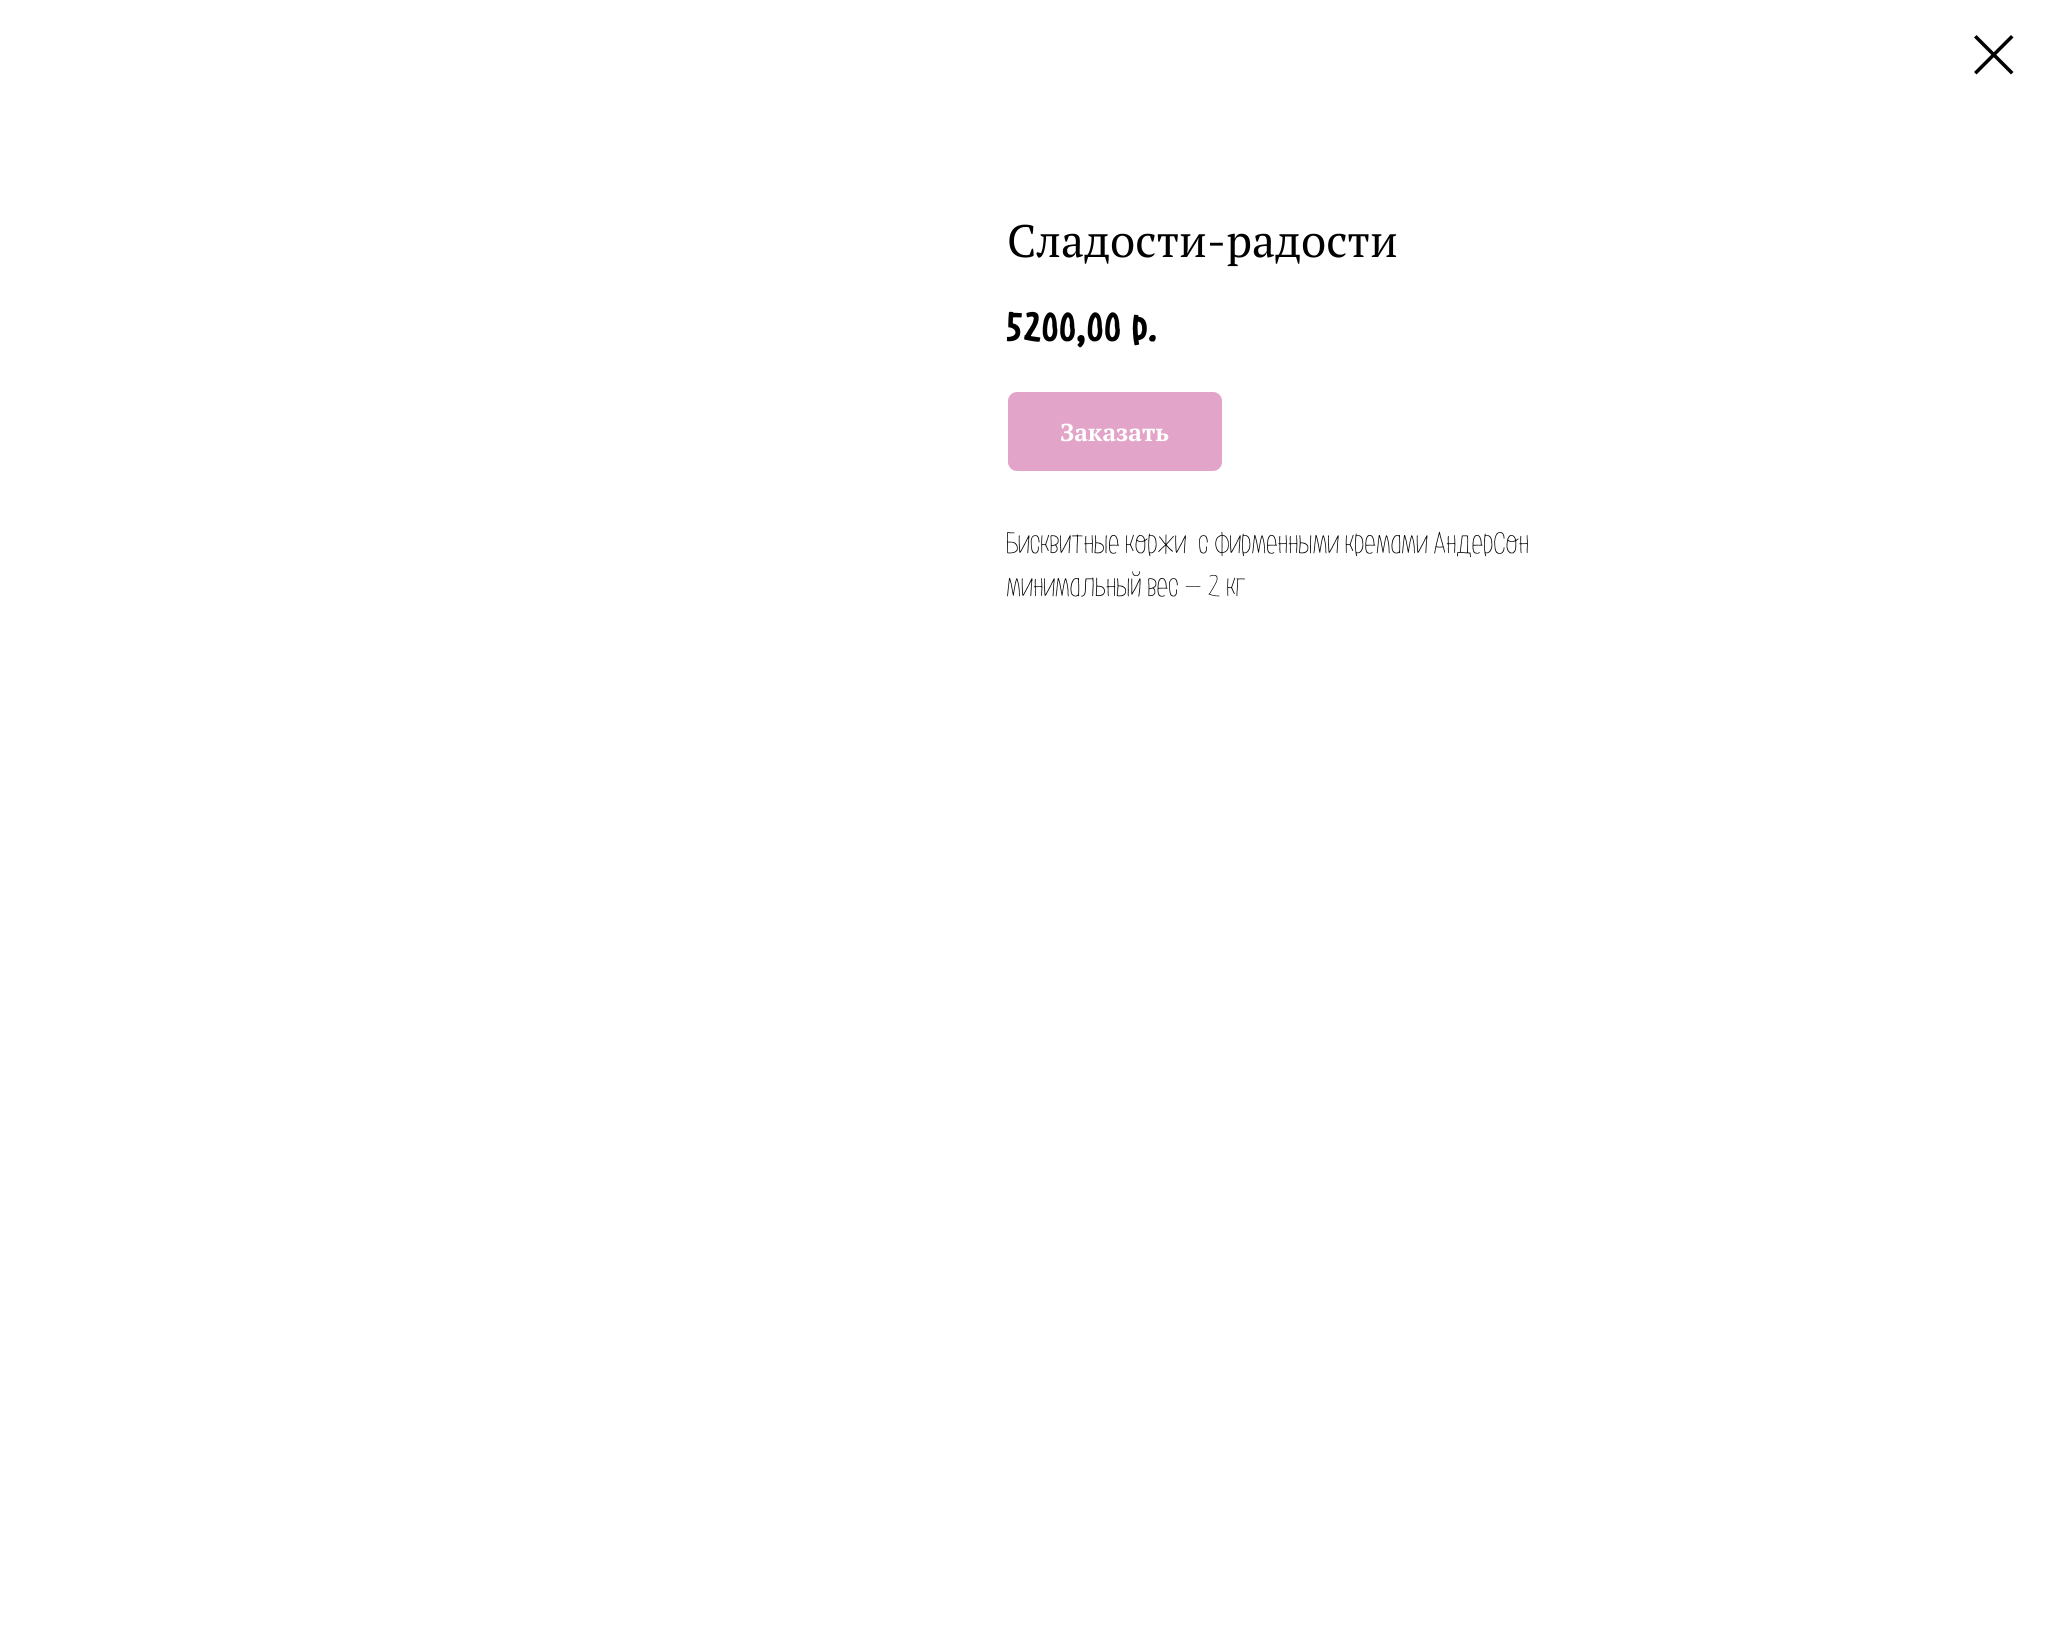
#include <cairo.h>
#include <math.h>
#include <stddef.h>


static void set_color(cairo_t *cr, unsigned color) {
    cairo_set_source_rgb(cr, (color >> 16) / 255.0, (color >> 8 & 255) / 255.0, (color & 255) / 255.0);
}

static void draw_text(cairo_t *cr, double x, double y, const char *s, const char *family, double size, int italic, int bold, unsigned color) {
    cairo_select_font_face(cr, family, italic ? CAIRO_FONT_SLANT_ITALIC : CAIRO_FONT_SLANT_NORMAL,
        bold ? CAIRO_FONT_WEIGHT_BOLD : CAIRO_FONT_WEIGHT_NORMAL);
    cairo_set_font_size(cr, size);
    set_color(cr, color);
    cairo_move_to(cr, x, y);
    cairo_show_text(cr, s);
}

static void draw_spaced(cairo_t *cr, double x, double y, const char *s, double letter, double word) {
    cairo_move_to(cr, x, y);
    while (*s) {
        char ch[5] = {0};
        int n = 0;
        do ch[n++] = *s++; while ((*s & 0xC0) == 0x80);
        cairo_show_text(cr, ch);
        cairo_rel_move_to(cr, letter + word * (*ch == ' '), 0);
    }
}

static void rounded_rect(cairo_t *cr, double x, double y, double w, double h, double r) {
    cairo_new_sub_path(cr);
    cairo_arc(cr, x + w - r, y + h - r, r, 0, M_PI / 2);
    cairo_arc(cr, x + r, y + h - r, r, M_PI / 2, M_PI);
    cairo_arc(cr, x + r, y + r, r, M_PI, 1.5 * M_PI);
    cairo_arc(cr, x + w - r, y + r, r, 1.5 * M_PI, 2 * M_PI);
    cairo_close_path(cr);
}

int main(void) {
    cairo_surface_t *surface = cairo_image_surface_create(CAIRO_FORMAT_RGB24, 2048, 1628);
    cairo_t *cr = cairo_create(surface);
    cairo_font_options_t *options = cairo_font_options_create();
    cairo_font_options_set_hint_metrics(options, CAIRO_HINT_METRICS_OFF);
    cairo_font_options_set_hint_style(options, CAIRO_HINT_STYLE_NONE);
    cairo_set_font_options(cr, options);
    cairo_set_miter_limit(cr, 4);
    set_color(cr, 0xFFFFFF);
    cairo_paint(cr);
    set_color(cr, 0x000000);
    cairo_set_fill_rule(cr, CAIRO_FILL_RULE_EVEN_ODD);
    cairo_new_path(cr);
    cairo_move_to(cr, 1974, 37.5);
    cairo_line_to(cr, 1976.5, 35);
    cairo_line_to(cr, 2013.5, 72);
    cairo_line_to(cr, 2011, 74.5);
    cairo_close_path(cr);
    cairo_fill(cr);
    cairo_new_path(cr);
    cairo_move_to(cr, 2011, 35);
    cairo_line_to(cr, 2013.5, 37.5);
    cairo_line_to(cr, 1976.5, 74.5);
    cairo_line_to(cr, 1974, 72);
    cairo_close_path(cr);
    cairo_fill(cr);
    draw_text(cr, 1007, 257, "Сладости-радости", "PT Serif", 45.5, 0, 0, 0x000000);
    draw_text(cr, 1007, 341, "5200,00", "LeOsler", 38.5, 0, 0, 0x000000);
    draw_text(cr, 1133, 341, "р.", "LeOsler", 38.5, 0, 0, 0x000000);
    set_color(cr, 0xE2A4C8);
    rounded_rect(cr, 1008, 392, 214, 79, 9);
    cairo_fill(cr);
    draw_text(cr, 1060, 441, "Заказать", "PT Serif", 24.5, 0, 1, 0xFFFFFF);
    cairo_select_font_face(cr, "LeOsler Light", CAIRO_FONT_SLANT_NORMAL, CAIRO_FONT_WEIGHT_NORMAL);
    cairo_set_font_size(cr, 28);
    set_color(cr, 0x000000);
    draw_spaced(cr, 1007, 553, "Бисквитные коржи", 0, -1.5);
    draw_spaced(cr, 1199, 553, "с фирменными кремами АндерСон", 0, -1.5);
    draw_spaced(cr, 1007, 596, "минимальный вес - 2 кг", 0, -1);
    cairo_surface_write_to_png(surface, "output.png");
    cairo_font_options_destroy(options);
    cairo_destroy(cr);
    cairo_surface_destroy(surface);
    return 0;
}
